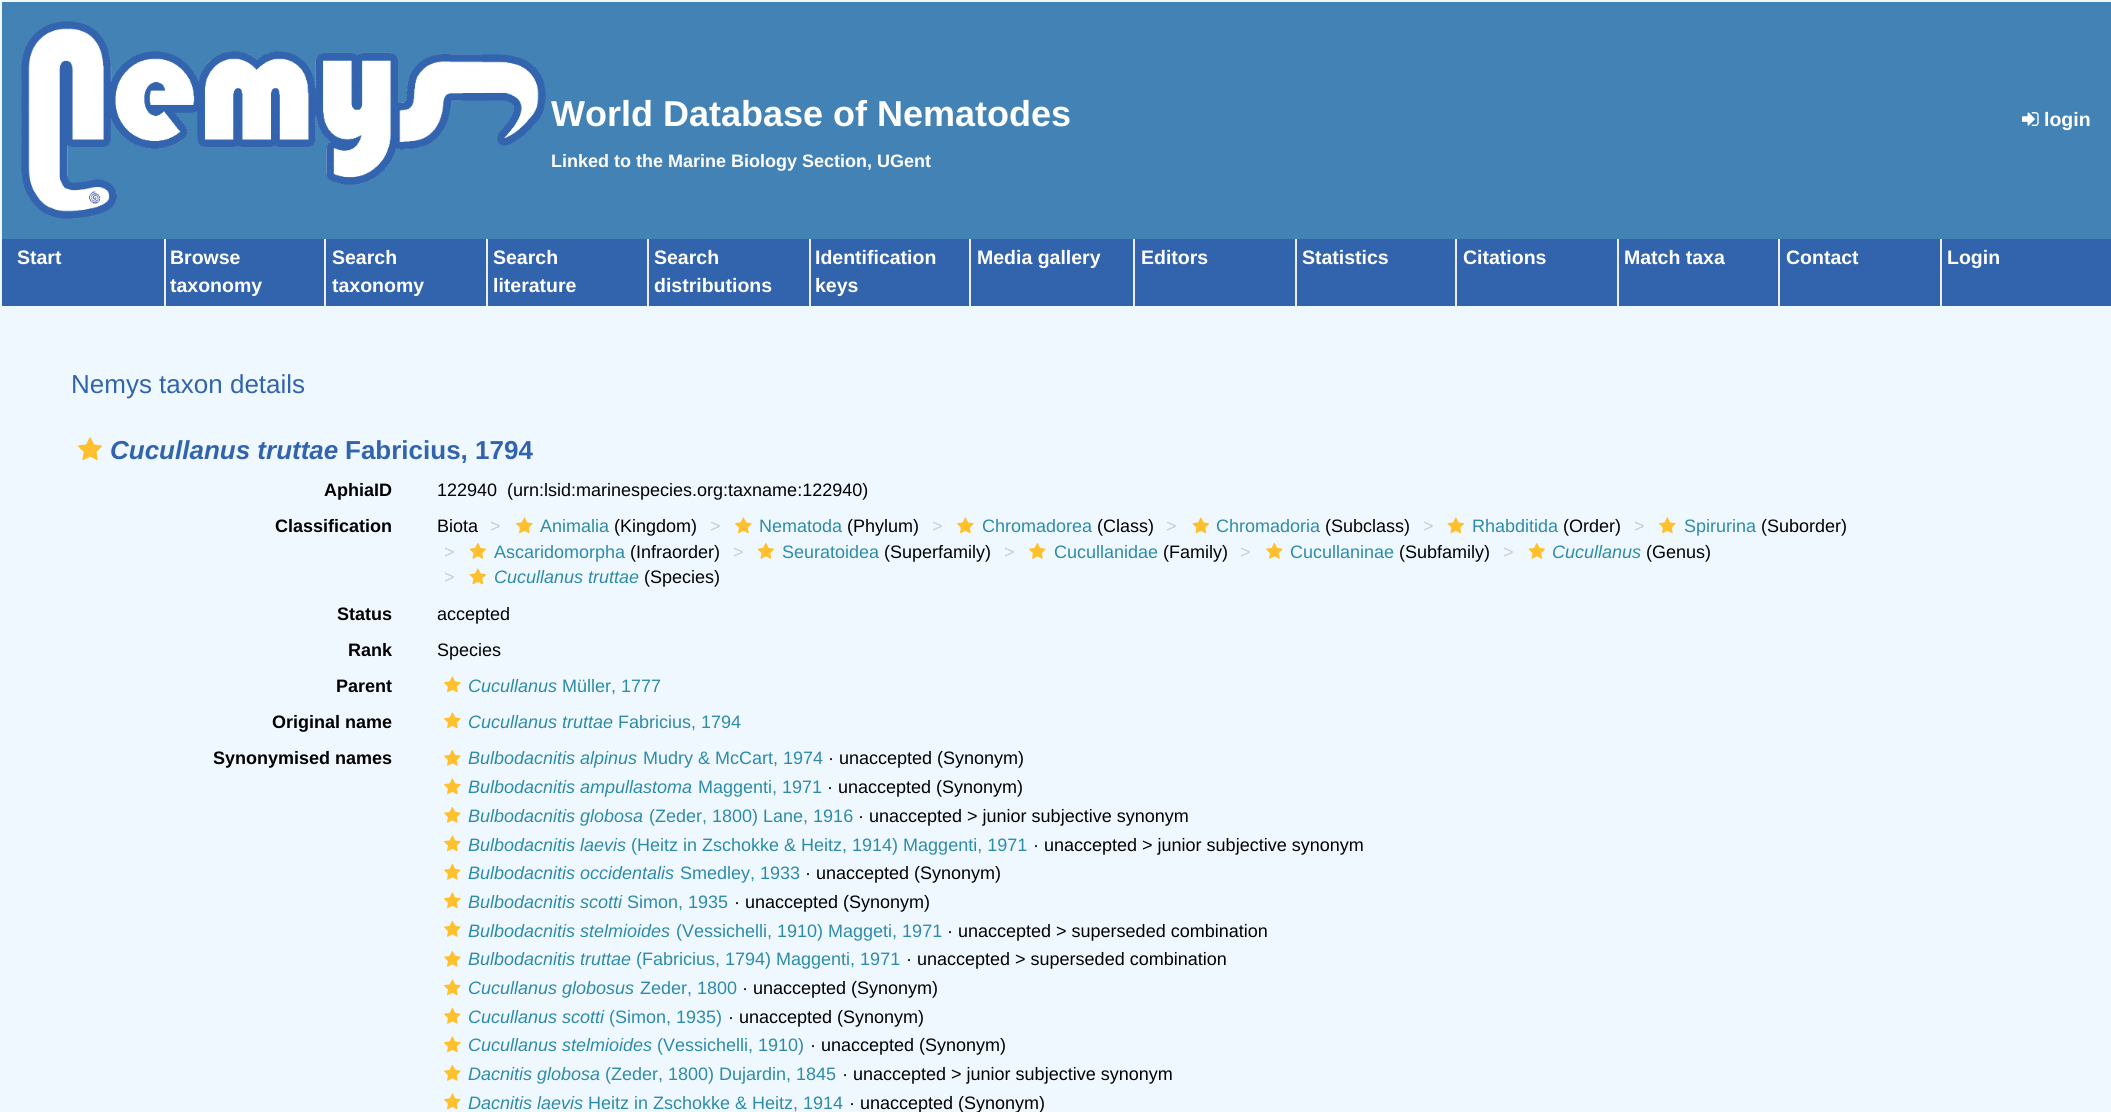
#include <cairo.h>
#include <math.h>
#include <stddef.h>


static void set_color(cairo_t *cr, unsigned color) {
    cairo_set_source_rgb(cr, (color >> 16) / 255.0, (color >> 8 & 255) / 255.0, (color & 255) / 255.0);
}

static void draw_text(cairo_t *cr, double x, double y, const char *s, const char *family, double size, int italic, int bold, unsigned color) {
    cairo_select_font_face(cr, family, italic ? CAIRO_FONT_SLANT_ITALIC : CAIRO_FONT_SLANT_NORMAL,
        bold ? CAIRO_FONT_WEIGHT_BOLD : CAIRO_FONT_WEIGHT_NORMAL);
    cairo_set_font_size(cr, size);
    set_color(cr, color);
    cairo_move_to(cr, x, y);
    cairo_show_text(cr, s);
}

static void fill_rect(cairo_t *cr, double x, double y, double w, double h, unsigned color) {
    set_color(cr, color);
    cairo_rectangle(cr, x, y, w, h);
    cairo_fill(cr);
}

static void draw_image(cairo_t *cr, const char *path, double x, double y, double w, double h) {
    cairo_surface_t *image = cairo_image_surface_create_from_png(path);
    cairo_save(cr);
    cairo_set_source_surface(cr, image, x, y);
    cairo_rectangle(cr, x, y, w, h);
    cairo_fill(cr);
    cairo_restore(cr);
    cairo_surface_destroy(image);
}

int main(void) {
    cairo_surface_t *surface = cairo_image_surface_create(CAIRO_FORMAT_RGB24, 2111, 1112);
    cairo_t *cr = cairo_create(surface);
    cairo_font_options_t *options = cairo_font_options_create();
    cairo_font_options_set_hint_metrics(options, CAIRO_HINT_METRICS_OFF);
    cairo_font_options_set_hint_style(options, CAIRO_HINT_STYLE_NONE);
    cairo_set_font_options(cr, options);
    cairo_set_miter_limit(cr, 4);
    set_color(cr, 0xF0F8FF);
    cairo_paint(cr);
    fill_rect(cr, 2, 2, 2109, 237, 0x4382B4);
    draw_image(cr, "assets/img1.png", 21, 21, 525, 198);
    draw_text(cr, 551, 126, "World Database of Nematodes", "Liberation Sans", 36, 0, 1, 0xFFFFFF);
    draw_text(cr, 551, 167, "Linked to the Marine Biology Section, UGent", "Liberation Sans", 18, 0, 1, 0xFFFFFF);
    draw_image(cr, "assets/img2.png", 2022, 112, 17, 14);
    draw_text(cr, 2044, 126, "login", "Liberation Sans", 19.5, 0, 1, 0xFFFFFF);
    fill_rect(cr, 2, 239, 2109, 67, 0x3264AE);
    draw_text(cr, 17, 264, "Start", "Liberation Sans", 19.5, 0, 1, 0xFFFFFF);
    fill_rect(cr, 164, 239, 2, 67, 0xEEEEEE);
    draw_text(cr, 170, 264, "Browse", "Liberation Sans", 19.5, 0, 1, 0xFFFFFF);
    draw_text(cr, 170, 292, "taxonomy", "Liberation Sans", 19.5, 0, 1, 0xFFFFFF);
    fill_rect(cr, 324, 239, 2, 67, 0xEEEEEE);
    draw_text(cr, 332, 264, "Search", "Liberation Sans", 19.5, 0, 1, 0xFFFFFF);
    draw_text(cr, 332, 292, "taxonomy", "Liberation Sans", 19.5, 0, 1, 0xFFFFFF);
    fill_rect(cr, 486, 239, 2, 67, 0xEEEEEE);
    draw_text(cr, 493, 264, "Search", "Liberation Sans", 19.5, 0, 1, 0xFFFFFF);
    draw_text(cr, 493, 292, "literature", "Liberation Sans", 19.5, 0, 1, 0xFFFFFF);
    fill_rect(cr, 647, 239, 2, 67, 0xEEEEEE);
    draw_text(cr, 654, 264, "Search", "Liberation Sans", 19.5, 0, 1, 0xFFFFFF);
    draw_text(cr, 654, 292, "distributions", "Liberation Sans", 19.5, 0, 1, 0xFFFFFF);
    fill_rect(cr, 809, 239, 2, 67, 0xEEEEEE);
    draw_text(cr, 815, 264, "Identification", "Liberation Sans", 19.5, 0, 1, 0xFFFFFF);
    draw_text(cr, 815, 292, "keys", "Liberation Sans", 19.5, 0, 1, 0xFFFFFF);
    fill_rect(cr, 969, 239, 2, 67, 0xEEEEEE);
    draw_text(cr, 977, 264, "Media gallery", "Liberation Sans", 19.5, 0, 1, 0xFFFFFF);
    fill_rect(cr, 1133, 239, 2, 67, 0xEEEEEE);
    draw_text(cr, 1141, 264, "Editors", "Liberation Sans", 19.5, 0, 1, 0xFFFFFF);
    fill_rect(cr, 1295, 239, 2, 67, 0xEEEEEE);
    draw_text(cr, 1302, 264, "Statistics", "Liberation Sans", 19.5, 0, 1, 0xFFFFFF);
    fill_rect(cr, 1455, 239, 2, 67, 0xEEEEEE);
    draw_text(cr, 1463, 264, "Citations", "Liberation Sans", 19.5, 0, 1, 0xFFFFFF);
    fill_rect(cr, 1617, 239, 2, 67, 0xEEEEEE);
    draw_text(cr, 1624, 264, "Match taxa", "Liberation Sans", 19.5, 0, 1, 0xFFFFFF);
    fill_rect(cr, 1778, 239, 2, 67, 0xEEEEEE);
    draw_text(cr, 1786, 264, "Contact", "Liberation Sans", 19.5, 0, 1, 0xFFFFFF);
    fill_rect(cr, 1940, 239, 2, 67, 0xEEEEEE);
    draw_text(cr, 1947, 264, "Login", "Liberation Sans", 19.5, 0, 1, 0xFFFFFF);
    draw_text(cr, 71, 393, "Nemys taxon details", "Liberation Sans", 26, 0, 0, 0x3264AE);
    draw_image(cr, "assets/img3.png", 78, 437, 25, 24);
    draw_text(cr, 110, 459, "Cucullanus truttae", "Liberation Sans", 26, 1, 1, 0x3264AE);
    draw_text(cr, 345, 459, "Fabricius, 1794", "Liberation Sans", 26, 0, 1, 0x3264AE);
    draw_text(cr, 324, 496, "AphiaID", "Liberation Sans", 18, 0, 1, 0x000000);
    draw_text(cr, 437, 496, "122940", "Liberation Sans", 18, 0, 0, 0x000000);
    draw_text(cr, 507, 496, "(urn:lsid:marinespecies.org:taxname:122940)", "Liberation Sans", 18, 0, 0, 0x000000);
    draw_text(cr, 275, 532, "Classification", "Liberation Sans", 18, 0, 1, 0x000000);
    draw_text(cr, 437, 532, "Biota", "Liberation Sans", 18, 0, 0, 0x000000);
    draw_text(cr, 490, 532, ">", "Liberation Sans", 18, 0, 0, 0xCCCCCC);
    draw_image(cr, "assets/img4.png", 516, 517, 17, 17);
    draw_text(cr, 540, 532, "Animalia", "Liberation Sans", 18, 0, 0, 0x2D8BA8);
    draw_text(cr, 614, 532, "(Kingdom)", "Liberation Sans", 18, 0, 0, 0x000000);
    draw_text(cr, 710, 532, ">", "Liberation Sans", 18, 0, 0, 0xCCCCCC);
    draw_image(cr, "assets/img4.png", 735, 517, 17, 17);
    draw_text(cr, 759, 532, "Nematoda", "Liberation Sans", 18, 0, 0, 0x2D8BA8);
    draw_text(cr, 847, 532, "(Phylum)", "Liberation Sans", 18, 0, 0, 0x000000);
    draw_text(cr, 932, 532, ">", "Liberation Sans", 18, 0, 0, 0xCCCCCC);
    draw_image(cr, "assets/img4.png", 957, 517, 17, 17);
    draw_text(cr, 982, 532, "Chromadorea", "Liberation Sans", 18, 0, 0, 0x2D8BA8);
    draw_text(cr, 1097, 532, "(Class)", "Liberation Sans", 18, 0, 0, 0x000000);
    draw_text(cr, 1166, 532, ">", "Liberation Sans", 18, 0, 0, 0xCCCCCC);
    draw_image(cr, "assets/img5.png", 1192, 517, 18, 17);
    draw_text(cr, 1216, 532, "Chromadoria", "Liberation Sans", 18, 0, 0, 0x2D8BA8);
    draw_text(cr, 1325, 532, "(Subclass)", "Liberation Sans", 18, 0, 0, 0x000000);
    draw_text(cr, 1423, 532, ">", "Liberation Sans", 18, 0, 0, 0xCCCCCC);
    draw_image(cr, "assets/img5.png", 1447, 517, 18, 17);
    draw_text(cr, 1472, 532, "Rhabditida", "Liberation Sans", 18, 0, 0, 0x2D8BA8);
    draw_text(cr, 1563, 532, "(Order)", "Liberation Sans", 18, 0, 0, 0x000000);
    draw_text(cr, 1634, 532, ">", "Liberation Sans", 18, 0, 0, 0xCCCCCC);
    draw_image(cr, "assets/img4.png", 1659, 517, 17, 17);
    draw_text(cr, 1684, 532, "Spirurina", "Liberation Sans", 18, 0, 0, 0x2D8BA8);
    draw_text(cr, 1761, 532, "(Suborder)", "Liberation Sans", 18, 0, 0, 0x000000);
    draw_text(cr, 444, 558, ">", "Liberation Sans", 18, 0, 0, 0xCCCCCC);
    draw_image(cr, "assets/img6.png", 469, 542, 18, 17);
    draw_text(cr, 494, 558, "Ascaridomorpha", "Liberation Sans", 18, 0, 0, 0x2D8BA8);
    draw_text(cr, 630, 558, "(Infraorder)", "Liberation Sans", 18, 0, 0, 0x000000);
    draw_text(cr, 733, 558, ">", "Liberation Sans", 18, 0, 0, 0xCCCCCC);
    draw_image(cr, "assets/img6.png", 757, 542, 18, 17);
    draw_text(cr, 782, 558, "Seuratoidea", "Liberation Sans", 18, 0, 0, 0x2D8BA8);
    draw_text(cr, 884, 558, "(Superfamily)", "Liberation Sans", 18, 0, 0, 0x000000);
    draw_text(cr, 1004, 558, ">", "Liberation Sans", 18, 0, 0, 0xCCCCCC);
    draw_image(cr, "assets/img7.png", 1029, 542, 17, 17);
    draw_text(cr, 1054, 558, "Cucullanidae", "Liberation Sans", 18, 0, 0, 0x2D8BA8);
    draw_text(cr, 1163, 558, "(Family)", "Liberation Sans", 18, 0, 0, 0x000000);
    draw_text(cr, 1240, 558, ">", "Liberation Sans", 18, 0, 0, 0xCCCCCC);
    draw_image(cr, "assets/img7.png", 1266, 542, 17, 17);
    draw_text(cr, 1290, 558, "Cucullaninae", "Liberation Sans", 18, 0, 0, 0x2D8BA8);
    draw_text(cr, 1399, 558, "(Subfamily)", "Liberation Sans", 18, 0, 0, 0x000000);
    draw_text(cr, 1503, 558, ">", "Liberation Sans", 18, 0, 0, 0xCCCCCC);
    draw_image(cr, "assets/img6.png", 1528, 542, 18, 17);
    draw_text(cr, 1552, 558, "Cucullanus", "Liberation Sans", 18, 1, 0, 0x2D8BA8);
    draw_text(cr, 1646, 558, "(Genus)", "Liberation Sans", 18, 0, 0, 0x000000);
    draw_text(cr, 444, 583, ">", "Liberation Sans", 18, 0, 0, 0xCCCCCC);
    draw_image(cr, "assets/img5.png", 469, 568, 18, 17);
    draw_text(cr, 494, 583, "Cucullanus truttae", "Liberation Sans", 18, 1, 0, 0x2D8BA8);
    draw_text(cr, 644, 583, "(Species)", "Liberation Sans", 18, 0, 0, 0x000000);
    draw_text(cr, 337, 620, "Status", "Liberation Sans", 18, 0, 1, 0x000000);
    draw_text(cr, 437, 620, "accepted", "Liberation Sans", 18, 0, 0, 0x000000);
    draw_text(cr, 348, 656, "Rank", "Liberation Sans", 18, 0, 1, 0x000000);
    draw_text(cr, 437, 656, "Species", "Liberation Sans", 18, 0, 0, 0x000000);
    draw_text(cr, 336, 692, "Parent", "Liberation Sans", 18, 0, 1, 0x000000);
    draw_image(cr, "assets/img4.png", 444, 676, 17, 17);
    draw_text(cr, 468, 692, "Cucullanus", "Liberation Sans", 18, 1, 0, 0x2D8BA8);
    draw_text(cr, 562, 692, "Müller, 1777", "Liberation Sans", 18, 0, 0, 0x2D8BA8);
    draw_text(cr, 272, 728, "Original name", "Liberation Sans", 18, 0, 1, 0x000000);
    draw_image(cr, "assets/img4.png", 444, 712, 17, 17);
    draw_text(cr, 468, 728, "Cucullanus truttae", "Liberation Sans", 18, 1, 0, 0x2D8BA8);
    draw_text(cr, 618, 728, "Fabricius, 1794", "Liberation Sans", 18, 0, 0, 0x2D8BA8);
    draw_text(cr, 213, 764, "Synonymised names", "Liberation Sans", 18, 0, 1, 0x000000);
    draw_image(cr, "assets/img7.png", 444, 749, 17, 17);
    draw_text(cr, 468, 764, "Bulbodacnitis alpinus", "Liberation Sans", 18, 1, 0, 0x2D8BA8);
    draw_text(cr, 643, 764, "Mudry & McCart, 1974", "Liberation Sans", 18, 0, 0, 0x2D8BA8);
    draw_text(cr, 828, 764, "· unaccepted (Synonym)", "Liberation Sans", 18, 0, 0, 0x000000);
    draw_image(cr, "assets/img4.png", 444, 778, 17, 17);
    draw_text(cr, 468, 793, "Bulbodacnitis ampullastoma", "Liberation Sans", 18, 1, 0, 0x2D8BA8);
    draw_text(cr, 698, 793, "Maggenti, 1971", "Liberation Sans", 18, 0, 0, 0x2D8BA8);
    draw_text(cr, 827, 793, "· unaccepted (Synonym)", "Liberation Sans", 18, 0, 0, 0x000000);
    draw_image(cr, "assets/img7.png", 444, 806, 17, 17);
    draw_text(cr, 468, 822, "Bulbodacnitis globosa", "Liberation Sans", 18, 1, 0, 0x2D8BA8);
    draw_text(cr, 649, 822, "(Zeder, 1800) Lane, 1916", "Liberation Sans", 18, 0, 0, 0x2D8BA8);
    draw_text(cr, 858, 822, "· unaccepted > junior subjective synonym", "Liberation Sans", 18, 0, 0, 0x000000);
    draw_image(cr, "assets/img4.png", 444, 835, 17, 17);
    draw_text(cr, 468, 851, "Bulbodacnitis laevis", "Liberation Sans", 18, 1, 0, 0x2D8BA8);
    draw_text(cr, 631, 851, "(Heitz in Zschokke & Heitz, 1914) Maggenti, 1971", "Liberation Sans", 18, 0, 0, 0x2D8BA8);
    draw_text(cr, 1033, 851, "· unaccepted > junior subjective synonym", "Liberation Sans", 18, 0, 0, 0x000000);
    draw_image(cr, "assets/img7.png", 444, 863, 17, 17);
    draw_text(cr, 468, 879, "Bulbodacnitis occidentalis", "Liberation Sans", 18, 1, 0, 0x2D8BA8);
    draw_text(cr, 680, 879, "Smedley, 1933", "Liberation Sans", 18, 0, 0, 0x2D8BA8);
    draw_text(cr, 805, 879, "· unaccepted (Synonym)", "Liberation Sans", 18, 0, 0, 0x000000);
    draw_image(cr, "assets/img4.png", 444, 892, 17, 17);
    draw_text(cr, 468, 908, "Bulbodacnitis scotti", "Liberation Sans", 18, 1, 0, 0x2D8BA8);
    draw_text(cr, 627, 908, "Simon, 1935", "Liberation Sans", 18, 0, 0, 0x2D8BA8);
    draw_text(cr, 734, 908, "· unaccepted (Synonym)", "Liberation Sans", 18, 0, 0, 0x000000);
    draw_image(cr, "assets/img7.png", 444, 920, 17, 17);
    draw_text(cr, 468, 937, "Bulbodacnitis stelmioides", "Liberation Sans", 18, 1, 0, 0x2D8BA8);
    draw_text(cr, 676, 937, "(Vessichelli, 1910) Maggeti, 1971", "Liberation Sans", 18, 0, 0, 0x2D8BA8);
    draw_text(cr, 947, 937, "· unaccepted > superseded combination", "Liberation Sans", 18, 0, 0, 0x000000);
    draw_image(cr, "assets/img7.png", 444, 950, 17, 17);
    draw_text(cr, 468, 965, "Bulbodacnitis truttae", "Liberation Sans", 18, 1, 0, 0x2D8BA8);
    draw_text(cr, 636, 965, "(Fabricius, 1794) Maggenti, 1971", "Liberation Sans", 18, 0, 0, 0x2D8BA8);
    draw_text(cr, 906, 965, "· unaccepted > superseded combination", "Liberation Sans", 18, 0, 0, 0x000000);
    draw_image(cr, "assets/img4.png", 444, 979, 17, 17);
    draw_text(cr, 468, 994, "Cucullanus globosus", "Liberation Sans", 18, 1, 0, 0x2D8BA8);
    draw_text(cr, 640, 994, "Zeder, 1800", "Liberation Sans", 18, 0, 0, 0x2D8BA8);
    draw_text(cr, 742, 994, "· unaccepted (Synonym)", "Liberation Sans", 18, 0, 0, 0x000000);
    draw_image(cr, "assets/img7.png", 444, 1007, 17, 17);
    draw_text(cr, 468, 1023, "Cucullanus scotti", "Liberation Sans", 18, 1, 0, 0x2D8BA8);
    draw_text(cr, 609, 1023, "(Simon, 1935)", "Liberation Sans", 18, 0, 0, 0x2D8BA8);
    draw_text(cr, 728, 1023, "· unaccepted (Synonym)", "Liberation Sans", 18, 0, 0, 0x000000);
    draw_image(cr, "assets/img4.png", 444, 1036, 17, 17);
    draw_text(cr, 468, 1051, "Cucullanus stelmioides", "Liberation Sans", 18, 1, 0, 0x2D8BA8);
    draw_text(cr, 657, 1051, "(Vessichelli, 1910)", "Liberation Sans", 18, 0, 0, 0x2D8BA8);
    draw_text(cr, 810, 1051, "· unaccepted (Synonym)", "Liberation Sans", 18, 0, 0, 0x000000);
    draw_image(cr, "assets/img7.png", 444, 1064, 17, 17);
    draw_text(cr, 468, 1080, "Dacnitis globosa", "Liberation Sans", 18, 1, 0, 0x2D8BA8);
    draw_text(cr, 605, 1080, "(Zeder, 1800) Dujardin, 1845", "Liberation Sans", 18, 0, 0, 0x2D8BA8);
    draw_text(cr, 842, 1080, "· unaccepted > junior subjective synonym", "Liberation Sans", 18, 0, 0, 0x000000);
    draw_image(cr, "assets/img4.png", 444, 1093, 17, 17);
    draw_text(cr, 468, 1109, "Dacnitis laevis", "Liberation Sans", 18, 1, 0, 0x2D8BA8);
    draw_text(cr, 588, 1109, "Heitz in Zschokke & Heitz, 1914", "Liberation Sans", 18, 0, 0, 0x2D8BA8);
    draw_text(cr, 849, 1109, "· unaccepted (Synonym)", "Liberation Sans", 18, 0, 0, 0x000000);
    cairo_surface_write_to_png(surface, "output.png");
    cairo_font_options_destroy(options);
    cairo_destroy(cr);
    cairo_surface_destroy(surface);
    return 0;
}
